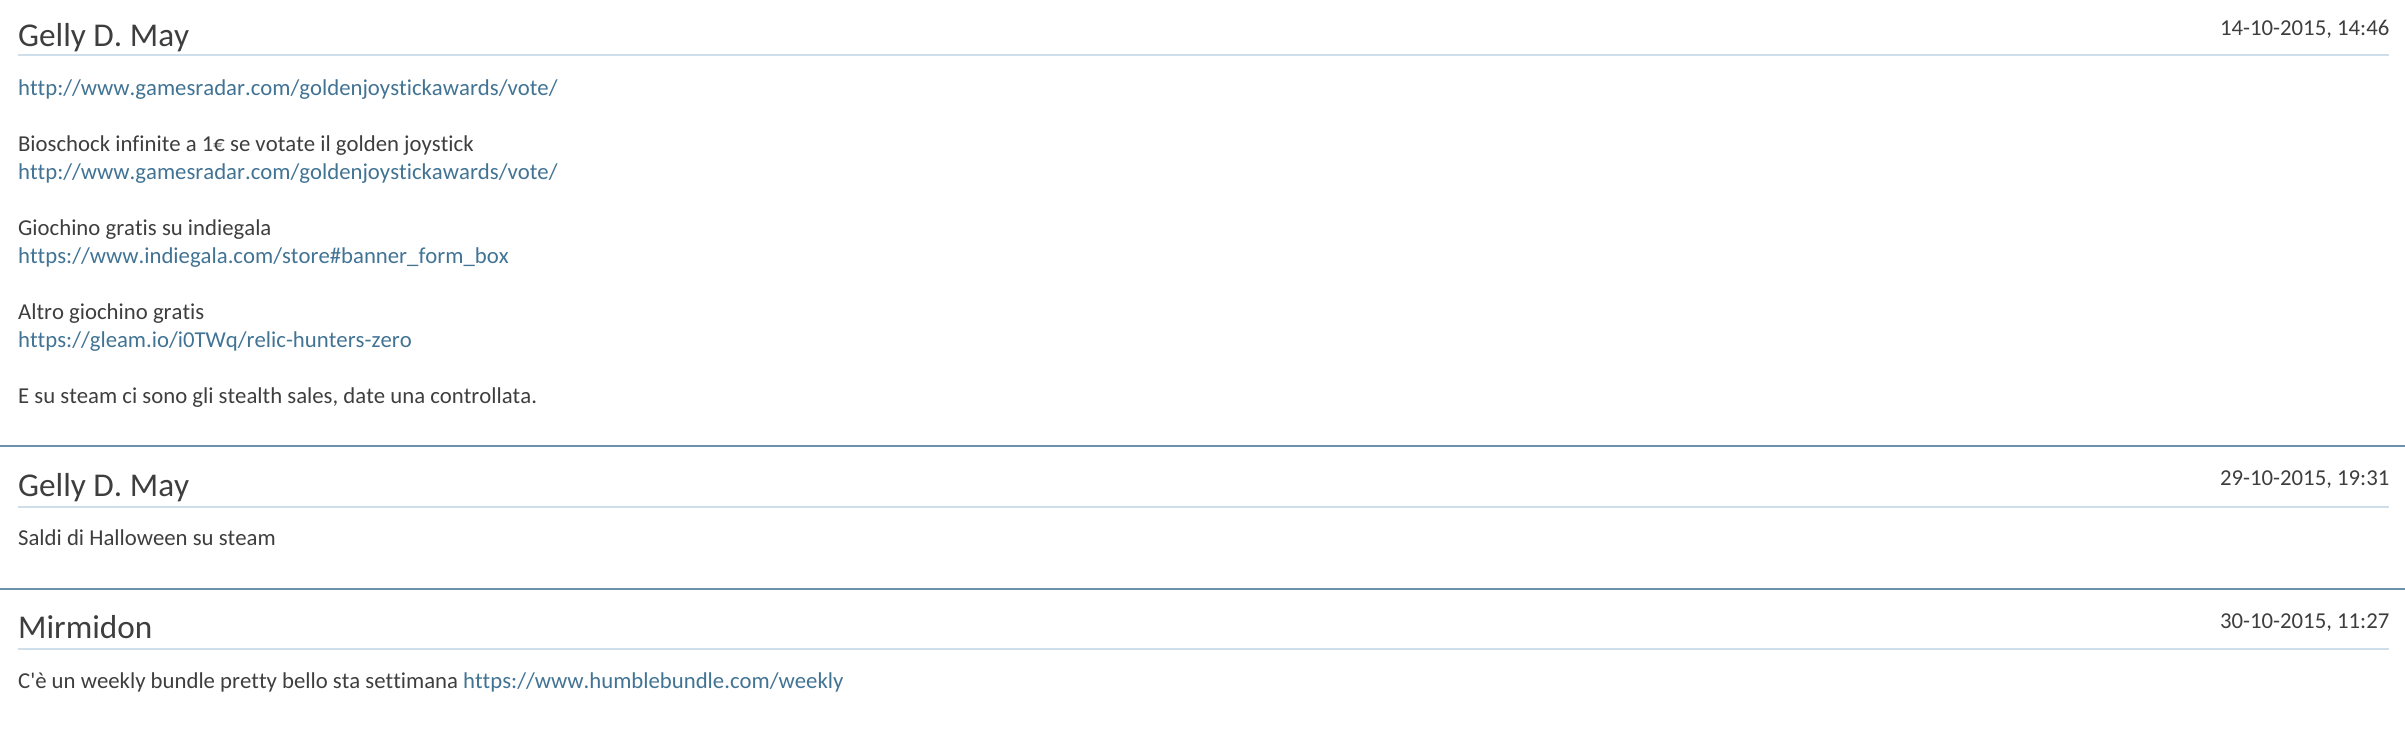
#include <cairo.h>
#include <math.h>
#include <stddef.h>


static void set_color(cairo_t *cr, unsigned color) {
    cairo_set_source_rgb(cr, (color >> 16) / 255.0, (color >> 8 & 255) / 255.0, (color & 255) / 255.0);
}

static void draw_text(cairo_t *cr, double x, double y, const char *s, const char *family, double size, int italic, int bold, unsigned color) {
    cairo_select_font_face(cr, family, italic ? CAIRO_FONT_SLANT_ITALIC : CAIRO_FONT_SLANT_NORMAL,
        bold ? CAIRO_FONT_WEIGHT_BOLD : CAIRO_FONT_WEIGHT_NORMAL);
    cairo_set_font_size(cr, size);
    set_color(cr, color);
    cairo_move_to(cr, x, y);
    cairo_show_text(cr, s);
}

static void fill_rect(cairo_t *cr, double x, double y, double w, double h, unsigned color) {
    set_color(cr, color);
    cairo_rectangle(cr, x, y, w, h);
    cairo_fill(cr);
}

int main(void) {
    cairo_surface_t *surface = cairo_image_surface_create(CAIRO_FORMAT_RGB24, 2405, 750);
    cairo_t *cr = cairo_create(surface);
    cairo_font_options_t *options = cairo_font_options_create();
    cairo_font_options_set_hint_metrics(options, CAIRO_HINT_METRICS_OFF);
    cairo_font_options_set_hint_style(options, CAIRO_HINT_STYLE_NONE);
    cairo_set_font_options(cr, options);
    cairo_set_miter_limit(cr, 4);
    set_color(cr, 0xFFFFFF);
    cairo_paint(cr);
    fill_rect(cr, 18, 54, 2371, 2, 0xCEDFEB);
    draw_text(cr, 18, 46, "Gelly D. May", "Carlito", 33.25, 0, 0, 0x3E3E3E);
    draw_text(cr, 2220, 35, "14-10-2015, 14:46", "Carlito", 22.75, 0, 0, 0x3E3E3E);
    draw_text(cr, 18, 95, "http://www.gamesradar.com/goldenjoystickawards/vote/", "Carlito", 22.75, 0, 0, 0x417394);
    draw_text(cr, 18, 151, "Bioschock infinite a 1€ se votate il golden joystick", "Carlito", 22.75, 0, 0, 0x3E3E3E);
    draw_text(cr, 18, 179, "http://www.gamesradar.com/goldenjoystickawards/vote/", "Carlito", 22.75, 0, 0, 0x417394);
    draw_text(cr, 18, 235, "Giochino gratis su indiegala", "Carlito", 22.75, 0, 0, 0x3E3E3E);
    draw_text(cr, 18, 263, "https://www.indiegala.com/store#banner_form_box", "Carlito", 22.75, 0, 0, 0x417394);
    draw_text(cr, 18, 319, "Altro giochino gratis", "Carlito", 22.75, 0, 0, 0x3E3E3E);
    draw_text(cr, 18, 347, "https://gleam.io/i0TWq/relic-hunters-zero", "Carlito", 22.75, 0, 0, 0x417394);
    draw_text(cr, 18, 403, "E su steam ci sono gli stealth sales, date una controllata.", "Carlito", 22.75, 0, 0, 0x3E3E3E);
    fill_rect(cr, 0, 445, 2405, 2, 0x6B91AB);
    fill_rect(cr, 18, 506, 2371, 2, 0xCEDFEB);
    draw_text(cr, 18, 496, "Gelly D. May", "Carlito", 33.25, 0, 0, 0x3E3E3E);
    draw_text(cr, 2220, 485, "29-10-2015, 19:31", "Carlito", 22.75, 0, 0, 0x3E3E3E);
    draw_text(cr, 18, 545, "Saldi di Halloween su steam", "Carlito", 22.75, 0, 0, 0x3E3E3E);
    fill_rect(cr, 0, 588, 2405, 2, 0x6B91AB);
    fill_rect(cr, 18, 648, 2371, 2, 0xCEDFEB);
    draw_text(cr, 18, 638, "Mirmidon", "Carlito", 33.25, 0, 0, 0x3E3E3E);
    draw_text(cr, 2220, 628, "30-10-2015, 11:27", "Carlito", 22.75, 0, 0, 0x3E3E3E);
    draw_text(cr, 18, 688, "C'è un weekly bundle pretty bello sta settimana", "Carlito", 22.75, 0, 0, 0x3E3E3E);
    draw_text(cr, 463, 688, "https://www.humblebundle.com/weekly", "Carlito", 22.75, 0, 0, 0x417394);
    cairo_surface_write_to_png(surface, "output.png");
    cairo_font_options_destroy(options);
    cairo_destroy(cr);
    cairo_surface_destroy(surface);
    return 0;
}
